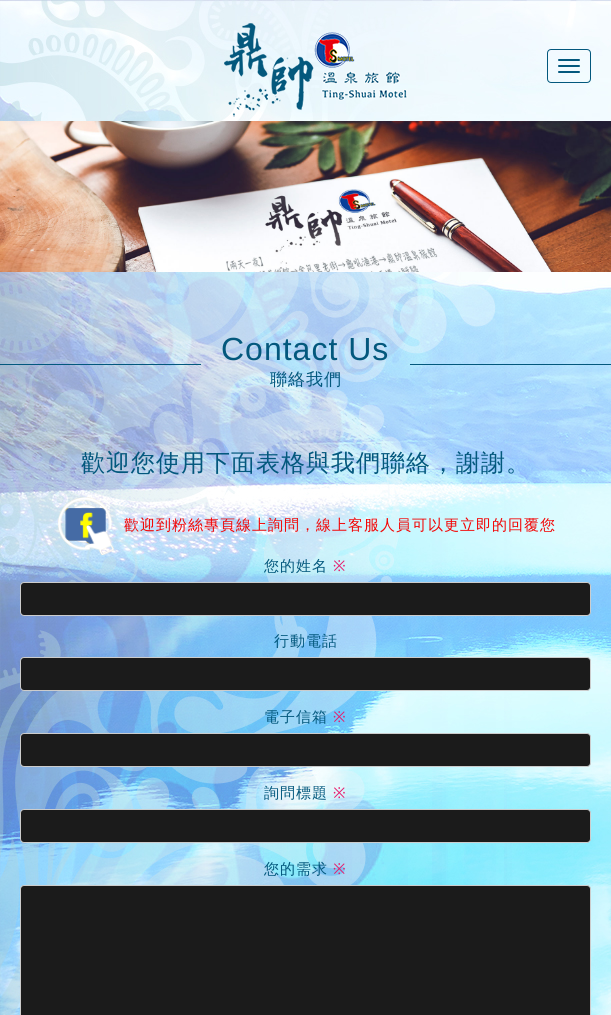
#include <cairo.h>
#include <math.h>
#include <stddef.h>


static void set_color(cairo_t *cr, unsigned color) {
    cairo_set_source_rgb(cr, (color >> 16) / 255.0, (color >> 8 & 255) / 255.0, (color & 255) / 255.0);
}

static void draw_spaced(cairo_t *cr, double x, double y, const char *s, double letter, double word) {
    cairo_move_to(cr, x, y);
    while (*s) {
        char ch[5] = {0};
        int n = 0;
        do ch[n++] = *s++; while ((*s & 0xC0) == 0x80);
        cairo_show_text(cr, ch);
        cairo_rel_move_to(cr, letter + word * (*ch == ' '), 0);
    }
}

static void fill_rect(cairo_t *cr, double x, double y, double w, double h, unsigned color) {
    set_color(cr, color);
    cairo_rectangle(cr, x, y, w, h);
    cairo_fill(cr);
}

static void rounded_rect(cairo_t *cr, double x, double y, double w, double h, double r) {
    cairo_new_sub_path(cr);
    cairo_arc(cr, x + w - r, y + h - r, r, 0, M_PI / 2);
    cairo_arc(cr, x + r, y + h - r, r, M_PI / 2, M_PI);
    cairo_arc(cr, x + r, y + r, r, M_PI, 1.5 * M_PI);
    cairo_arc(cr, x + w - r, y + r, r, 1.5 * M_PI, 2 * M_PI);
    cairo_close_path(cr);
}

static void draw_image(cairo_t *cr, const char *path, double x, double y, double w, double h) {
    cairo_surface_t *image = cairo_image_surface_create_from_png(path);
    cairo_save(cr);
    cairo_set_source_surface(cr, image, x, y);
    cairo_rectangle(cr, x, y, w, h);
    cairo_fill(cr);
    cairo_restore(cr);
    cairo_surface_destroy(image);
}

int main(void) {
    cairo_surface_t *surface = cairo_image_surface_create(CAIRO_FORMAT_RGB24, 611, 1015);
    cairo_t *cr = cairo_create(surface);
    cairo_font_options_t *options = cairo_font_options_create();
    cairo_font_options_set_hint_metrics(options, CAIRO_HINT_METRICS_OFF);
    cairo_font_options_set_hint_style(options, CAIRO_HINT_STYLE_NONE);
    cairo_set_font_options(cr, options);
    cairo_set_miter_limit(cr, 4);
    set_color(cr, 0xFFFFFF);
    cairo_paint(cr);
    draw_image(cr, "assets/img1.png", 0, 0, 611, 1015);
    draw_image(cr, "assets/img2.png", 224, 23, 184, 94);
    rounded_rect(cr, 547.5, 49.5, 43, 33, 3.5);
    set_color(cr, 0x03587D);
    cairo_set_line_width(cr, 1);
    cairo_stroke(cr);
    rounded_rect(cr, 558, 59, 22, 2, 1);
    cairo_fill(cr);
    rounded_rect(cr, 558, 65, 22, 2, 1);
    cairo_fill(cr);
    rounded_rect(cr, 558, 71, 22, 2, 1);
    cairo_fill(cr);
    draw_image(cr, "assets/img3.png", 0, 121, 611, 151);
    cairo_select_font_face(cr, "Liberation Sans", CAIRO_FONT_SLANT_NORMAL, CAIRO_FONT_WEIGHT_NORMAL);
    cairo_set_font_size(cr, 32);
    draw_spaced(cr, 221, 360, "Contact Us", 1, 0);
    fill_rect(cr, 0, 364, 201, 1, 0x03587D);
    fill_rect(cr, 410, 364, 201, 1, 0x03587D);
    cairo_select_font_face(cr, "WenQuanYi Zen Hei Medium", CAIRO_FONT_SLANT_NORMAL, CAIRO_FONT_WEIGHT_NORMAL);
    cairo_set_font_size(cr, 17);
    draw_spaced(cr, 270, 385, "聯絡我們", 1, 0);
    cairo_set_font_size(cr, 24);
    draw_spaced(cr, 81, 471, "歡迎您使用下面表格與我們聯絡，謝謝。", 1, 0);
    draw_image(cr, "assets/img4.png", 57, 497, 57, 58);
    cairo_set_font_size(cr, 15);
    set_color(cr, 0xF30505);
    draw_spaced(cr, 124, 530, "歡迎到粉絲專頁線上詢問，線上客服人員可以更立即的回覆您", 1, 0);
    set_color(cr, 0x03587D);
    draw_spaced(cr, 264, 571, "您的姓名", 1, 0);
    cairo_select_font_face(cr, "Noto Sans", CAIRO_FONT_SLANT_NORMAL, CAIRO_FONT_WEIGHT_NORMAL);
    set_color(cr, 0xE61F6E);
    draw_spaced(cr, 333, 571, "※", 1, 0);
    set_color(cr, 0x1B1B1B);
    rounded_rect(cr, 20.5, 582.5, 570, 33, 3.5);
    cairo_fill_preserve(cr);
    set_color(cr, 0xCCCCCC);
    cairo_stroke(cr);
    cairo_select_font_face(cr, "WenQuanYi Zen Hei Medium", CAIRO_FONT_SLANT_NORMAL, CAIRO_FONT_WEIGHT_NORMAL);
    set_color(cr, 0x03587D);
    draw_spaced(cr, 274, 646, "行動電話", 1, 0);
    set_color(cr, 0x1B1B1B);
    rounded_rect(cr, 20.5, 657.5, 570, 33, 3.5);
    cairo_fill_preserve(cr);
    set_color(cr, 0xCCCCCC);
    cairo_stroke(cr);
    set_color(cr, 0x03587D);
    draw_spaced(cr, 264, 722, "電子信箱", 1, 0);
    cairo_select_font_face(cr, "Noto Sans", CAIRO_FONT_SLANT_NORMAL, CAIRO_FONT_WEIGHT_NORMAL);
    set_color(cr, 0xE61F6E);
    draw_spaced(cr, 333, 722, "※", 1, 0);
    set_color(cr, 0x1B1B1B);
    rounded_rect(cr, 20.5, 733.5, 570, 33, 3.5);
    cairo_fill_preserve(cr);
    set_color(cr, 0xCCCCCC);
    cairo_stroke(cr);
    cairo_select_font_face(cr, "WenQuanYi Zen Hei Medium", CAIRO_FONT_SLANT_NORMAL, CAIRO_FONT_WEIGHT_NORMAL);
    set_color(cr, 0x03587D);
    draw_spaced(cr, 264, 798, "詢問標題", 1, 0);
    cairo_select_font_face(cr, "Noto Sans", CAIRO_FONT_SLANT_NORMAL, CAIRO_FONT_WEIGHT_NORMAL);
    set_color(cr, 0xE61F6E);
    draw_spaced(cr, 333, 798, "※", 1, 0);
    set_color(cr, 0x1B1B1B);
    rounded_rect(cr, 20.5, 809.5, 570, 33, 3.5);
    cairo_fill_preserve(cr);
    set_color(cr, 0xCCCCCC);
    cairo_stroke(cr);
    cairo_select_font_face(cr, "WenQuanYi Zen Hei Medium", CAIRO_FONT_SLANT_NORMAL, CAIRO_FONT_WEIGHT_NORMAL);
    set_color(cr, 0x03587D);
    draw_spaced(cr, 264, 874, "您的需求", 1, 0);
    cairo_select_font_face(cr, "Noto Sans", CAIRO_FONT_SLANT_NORMAL, CAIRO_FONT_WEIGHT_NORMAL);
    set_color(cr, 0xE61F6E);
    draw_spaced(cr, 333, 874, "※", 1, 0);
    set_color(cr, 0x1B1B1B);
    rounded_rect(cr, 20.5, 885.5, 570, 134, 3.5);
    cairo_fill_preserve(cr);
    set_color(cr, 0xCCCCCC);
    cairo_stroke(cr);
    cairo_surface_write_to_png(surface, "output.png");
    cairo_font_options_destroy(options);
    cairo_destroy(cr);
    cairo_surface_destroy(surface);
    return 0;
}
